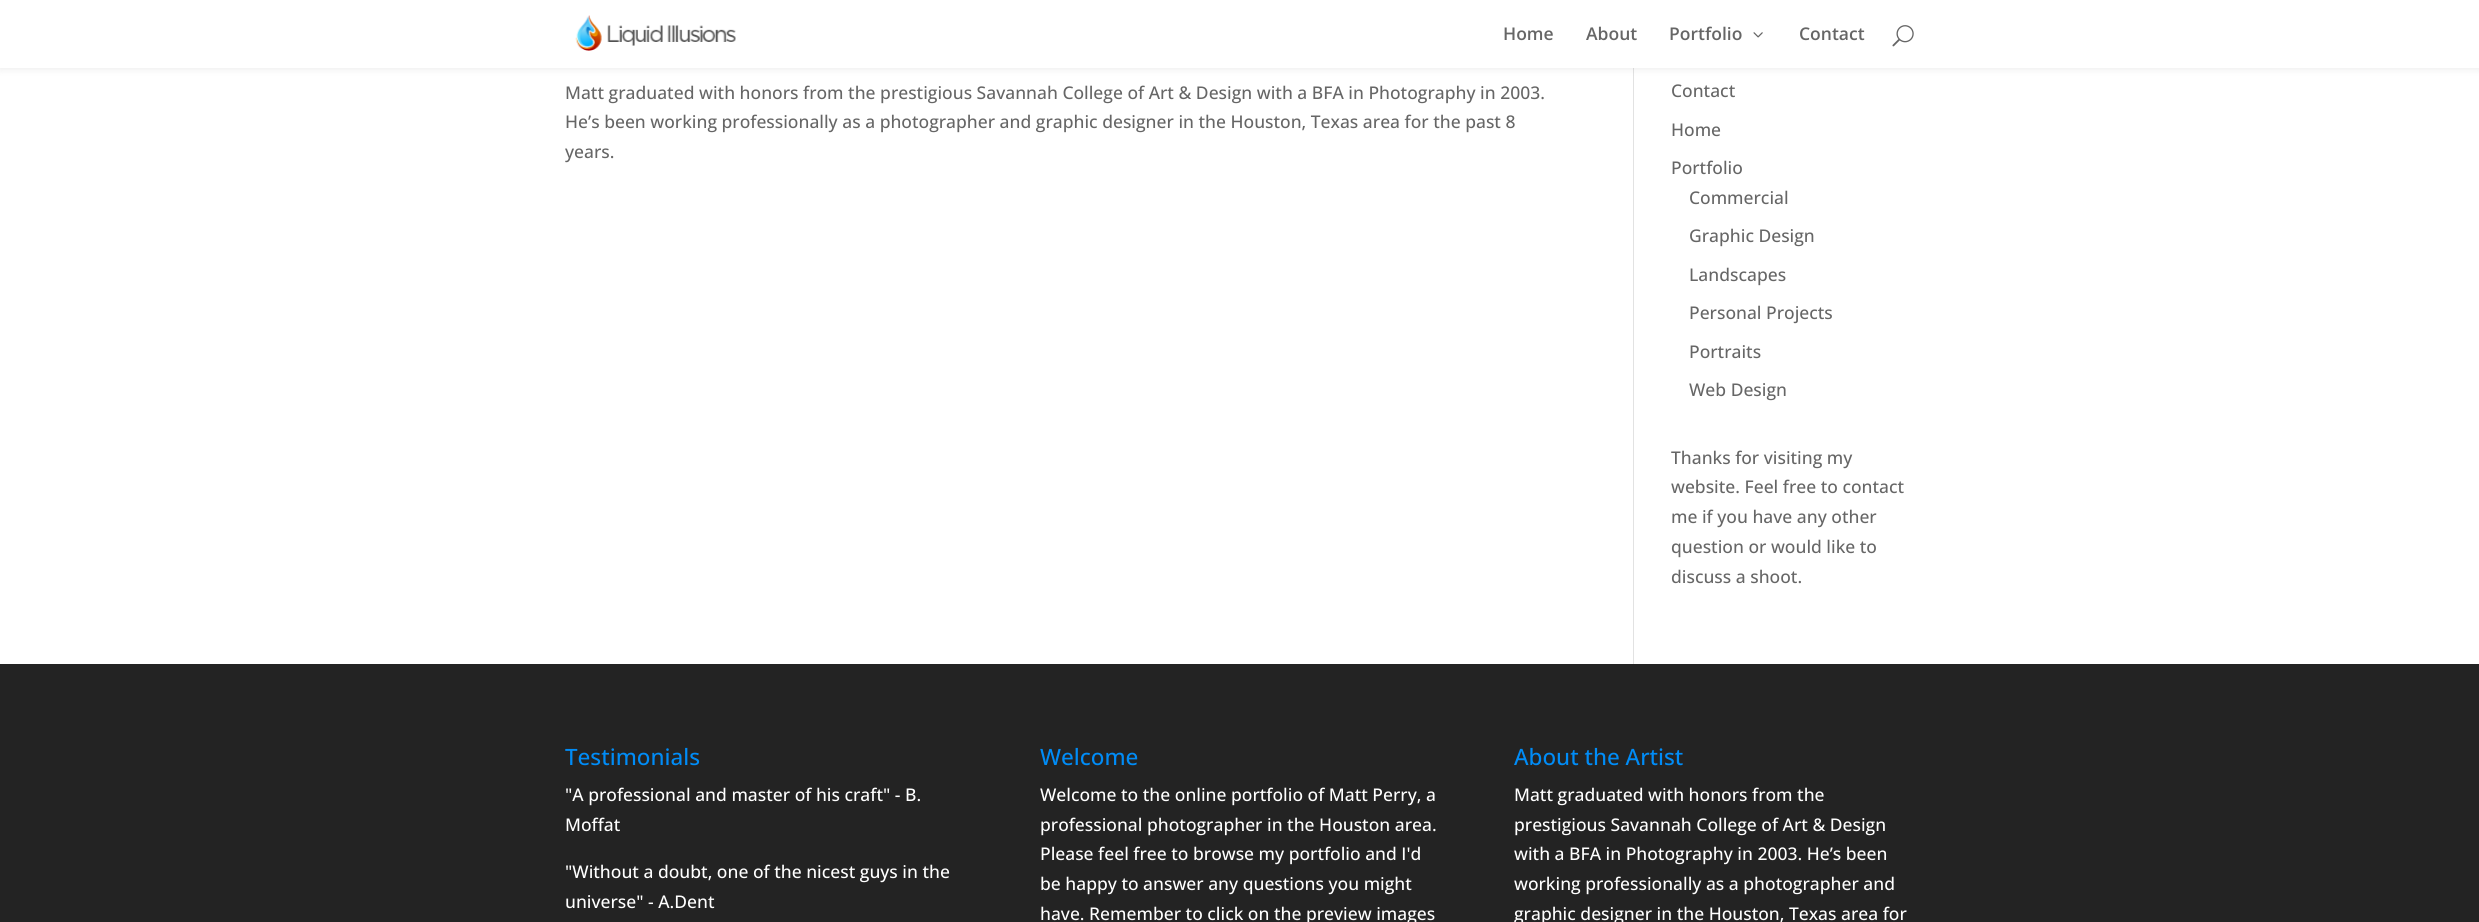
#include <cairo.h>
#include <math.h>
#include <stddef.h>


static void set_color(cairo_t *cr, unsigned color) {
    cairo_set_source_rgb(cr, (color >> 16) / 255.0, (color >> 8 & 255) / 255.0, (color & 255) / 255.0);
}

static void draw_text(cairo_t *cr, double x, double y, const char *s, const char *family, double size, int italic, int bold, unsigned color) {
    cairo_select_font_face(cr, family, italic ? CAIRO_FONT_SLANT_ITALIC : CAIRO_FONT_SLANT_NORMAL,
        bold ? CAIRO_FONT_WEIGHT_BOLD : CAIRO_FONT_WEIGHT_NORMAL);
    cairo_set_font_size(cr, size);
    set_color(cr, color);
    cairo_move_to(cr, x, y);
    cairo_show_text(cr, s);
}

static void fill_rect(cairo_t *cr, double x, double y, double w, double h, unsigned color) {
    set_color(cr, color);
    cairo_rectangle(cr, x, y, w, h);
    cairo_fill(cr);
}

static void rounded_rect(cairo_t *cr, double x, double y, double w, double h, double r) {
    cairo_new_sub_path(cr);
    cairo_arc(cr, x + w - r, y + h - r, r, 0, M_PI / 2);
    cairo_arc(cr, x + r, y + h - r, r, M_PI / 2, M_PI);
    cairo_arc(cr, x + r, y + r, r, M_PI, 1.5 * M_PI);
    cairo_arc(cr, x + w - r, y + r, r, 1.5 * M_PI, 2 * M_PI);
    cairo_close_path(cr);
}

static void draw_shadow(cairo_t *cr, double x, double y, double w, double h, double r, double blur, double alpha) {
    cairo_push_group_with_content(cr, CAIRO_CONTENT_ALPHA);
    cairo_set_operator(cr, CAIRO_OPERATOR_SOURCE);
    for (int i = 15; i >= -15 && fmin(w, h) + blur * i / 3 > 0; i -= 2) {
        double e = blur * i / 6;
        cairo_set_source_rgba(cr, 0, 0, 0, alpha * erfc((i - 1) / 8.5) / 2);
        rounded_rect(cr, x - e, y - e, w + 2 * e, h + 2 * e, fmax(0, fmin(r + e + blur * .6, fmin(w, h) / 2 + e)));
        cairo_fill(cr);
    }
    cairo_pattern_t *soft = cairo_pop_group(cr);
    cairo_mask(cr, soft);
    cairo_pattern_destroy(soft);
}

static void draw_image(cairo_t *cr, const char *path, double x, double y, double w, double h) {
    cairo_surface_t *image = cairo_image_surface_create_from_png(path);
    cairo_save(cr);
    cairo_set_source_surface(cr, image, x, y);
    cairo_rectangle(cr, x, y, w, h);
    cairo_fill(cr);
    cairo_restore(cr);
    cairo_surface_destroy(image);
}

int main(void) {
    cairo_surface_t *surface = cairo_image_surface_create(CAIRO_FORMAT_RGB24, 2479, 922);
    cairo_t *cr = cairo_create(surface);
    cairo_font_options_t *options = cairo_font_options_create();
    cairo_font_options_set_hint_metrics(options, CAIRO_HINT_METRICS_OFF);
    cairo_font_options_set_hint_style(options, CAIRO_HINT_STYLE_NONE);
    cairo_set_font_options(cr, options);
    cairo_set_miter_limit(cr, 4);
    set_color(cr, 0xFFFFFF);
    cairo_paint(cr);
    fill_rect(cr, 1633, 68, 1, 596, 0xE2E2E2);
    set_color(cr, 0x000000);
    draw_shadow(cr, 0, 0, 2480, 68, 0, 4.5, 0.1);
    fill_rect(cr, 0, 0, 2479, 68, 0xFFFFFF);
    draw_image(cr, "assets/img1.png", 575, 15, 161, 36);
    draw_text(cr, 1503, 40, "Home", "Open Sans SemiBold", 17.5, 0, 0, 0x666666);
    draw_text(cr, 1586, 40, "About", "Open Sans SemiBold", 17.5, 0, 0, 0x666666);
    draw_text(cr, 1669, 40, "Portfolio", "Open Sans SemiBold", 17.5, 0, 0, 0x666666);
    draw_image(cr, "assets/img2.png", 1753, 32, 10, 6);
    draw_text(cr, 1799, 40, "Contact", "Open Sans SemiBold", 17.5, 0, 0, 0x666666);
    draw_image(cr, "assets/img3.png", 1892, 25, 22, 22);
    draw_text(cr, 565, 99, "Matt graduated with honors from the prestigious Savannah College of Art & Design with a BFA in Photography in 2003.", "Open Sans Medium", 17.5, 0, 0, 0x666666);
    draw_text(cr, 565, 128, "He’s been working professionally as a photographer and graphic designer in the Houston, Texas area for the past 8", "Open Sans Medium", 17.5, 0, 0, 0x666666);
    draw_text(cr, 565, 158, "years.", "Open Sans Medium", 17.5, 0, 0, 0x666666);
    draw_text(cr, 1671, 97, "Contact", "Open Sans Medium", 17.5, 0, 0, 0x666666);
    draw_text(cr, 1671, 136, "Home", "Open Sans Medium", 17.5, 0, 0, 0x666666);
    draw_text(cr, 1671, 174, "Portfolio", "Open Sans Medium", 17.5, 0, 0, 0x666666);
    draw_text(cr, 1689, 204, "Commercial", "Open Sans Medium", 17.5, 0, 0, 0x666666);
    draw_text(cr, 1689, 242, "Graphic Design", "Open Sans Medium", 17.5, 0, 0, 0x666666);
    draw_text(cr, 1689, 281, "Landscapes", "Open Sans Medium", 17.5, 0, 0, 0x666666);
    draw_text(cr, 1689, 319, "Personal Projects", "Open Sans Medium", 17.5, 0, 0, 0x666666);
    draw_text(cr, 1689, 358, "Portraits", "Open Sans Medium", 17.5, 0, 0, 0x666666);
    draw_text(cr, 1689, 396, "Web Design", "Open Sans Medium", 17.5, 0, 0, 0x666666);
    draw_text(cr, 1671, 464, "Thanks for visiting my", "Open Sans Medium", 17.5, 0, 0, 0x666666);
    draw_text(cr, 1671, 493, "website. Feel free to contact", "Open Sans Medium", 17.5, 0, 0, 0x666666);
    draw_text(cr, 1671, 523, "me if you have any other", "Open Sans Medium", 17.5, 0, 0, 0x666666);
    draw_text(cr, 1671, 553, "question or would like to", "Open Sans Medium", 17.5, 0, 0, 0x666666);
    draw_text(cr, 1671, 583, "discuss a shoot.", "Open Sans Medium", 17.5, 0, 0, 0x666666);
    fill_rect(cr, 0, 664, 2479, 258, 0x232323);
    draw_text(cr, 565, 765, "Testimonials", "Open Sans Medium", 22.5, 0, 0, 0x008CF7);
    draw_text(cr, 565, 801, "\"A professional and master of his craft\" - B.", "Open Sans Medium", 17.5, 0, 0, 0xFFFFFF);
    draw_text(cr, 565, 831, "Moffat", "Open Sans Medium", 17.5, 0, 0, 0xFFFFFF);
    draw_text(cr, 565, 878, "\"Without a doubt, one of the nicest guys in the", "Open Sans Medium", 17.5, 0, 0, 0xFFFFFF);
    draw_text(cr, 565, 908, "universe\" - A.Dent", "Open Sans Medium", 17.5, 0, 0, 0xFFFFFF);
    draw_text(cr, 1040, 765, "Welcome", "Open Sans Medium", 22.5, 0, 0, 0x008CF7);
    draw_text(cr, 1040, 801, "Welcome to the online portfolio of Matt Perry, a", "Open Sans Medium", 17.5, 0, 0, 0xFFFFFF);
    draw_text(cr, 1040, 831, "professional photographer in the Houston area.", "Open Sans Medium", 17.5, 0, 0, 0xFFFFFF);
    draw_text(cr, 1040, 860, "Please feel free to browse my portfolio and I'd", "Open Sans Medium", 17.5, 0, 0, 0xFFFFFF);
    draw_text(cr, 1040, 890, "be happy to answer any questions you might", "Open Sans Medium", 17.5, 0, 0, 0xFFFFFF);
    draw_text(cr, 1040, 920, "have. Remember to click on the preview images", "Open Sans Medium", 17.5, 0, 0, 0xFFFFFF);
    draw_text(cr, 1514, 765, "About the Artist", "Open Sans Medium", 22.5, 0, 0, 0x008CF7);
    draw_text(cr, 1514, 801, "Matt graduated with honors from the", "Open Sans Medium", 17.5, 0, 0, 0xFFFFFF);
    draw_text(cr, 1514, 831, "prestigious Savannah College of Art & Design", "Open Sans Medium", 17.5, 0, 0, 0xFFFFFF);
    draw_text(cr, 1514, 860, "with a BFA in Photography in 2003. He’s been", "Open Sans Medium", 17.5, 0, 0, 0xFFFFFF);
    draw_text(cr, 1514, 890, "working professionally as a photographer and", "Open Sans Medium", 17.5, 0, 0, 0xFFFFFF);
    draw_text(cr, 1514, 920, "graphic designer in the Houston, Texas area for", "Open Sans Medium", 17.5, 0, 0, 0xFFFFFF);
    cairo_surface_write_to_png(surface, "output.png");
    cairo_font_options_destroy(options);
    cairo_destroy(cr);
    cairo_surface_destroy(surface);
    return 0;
}
